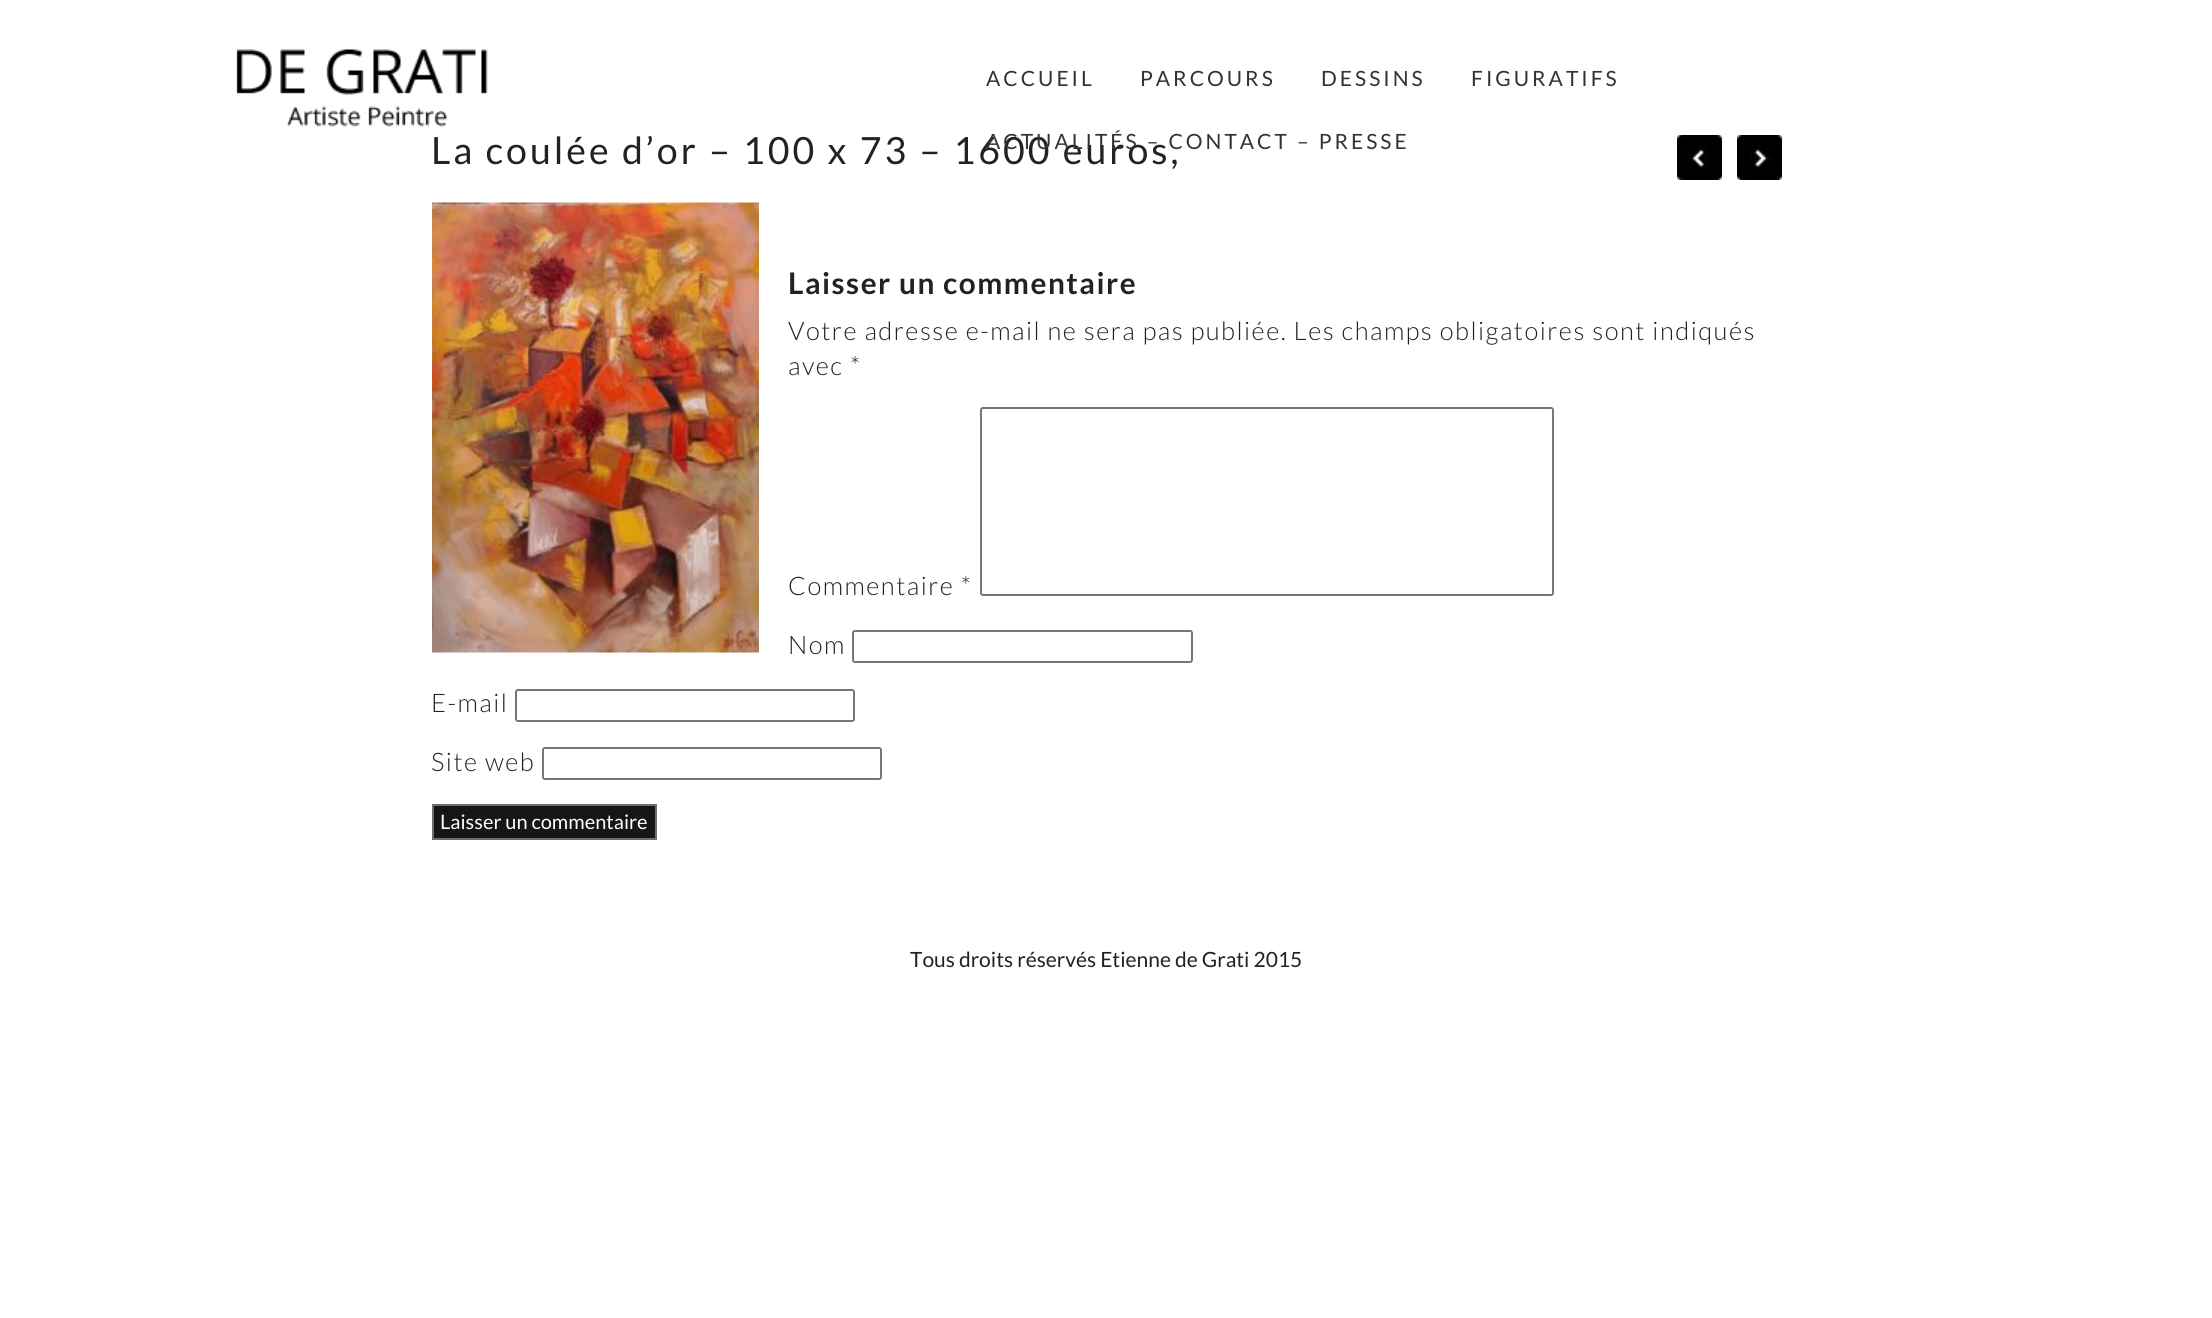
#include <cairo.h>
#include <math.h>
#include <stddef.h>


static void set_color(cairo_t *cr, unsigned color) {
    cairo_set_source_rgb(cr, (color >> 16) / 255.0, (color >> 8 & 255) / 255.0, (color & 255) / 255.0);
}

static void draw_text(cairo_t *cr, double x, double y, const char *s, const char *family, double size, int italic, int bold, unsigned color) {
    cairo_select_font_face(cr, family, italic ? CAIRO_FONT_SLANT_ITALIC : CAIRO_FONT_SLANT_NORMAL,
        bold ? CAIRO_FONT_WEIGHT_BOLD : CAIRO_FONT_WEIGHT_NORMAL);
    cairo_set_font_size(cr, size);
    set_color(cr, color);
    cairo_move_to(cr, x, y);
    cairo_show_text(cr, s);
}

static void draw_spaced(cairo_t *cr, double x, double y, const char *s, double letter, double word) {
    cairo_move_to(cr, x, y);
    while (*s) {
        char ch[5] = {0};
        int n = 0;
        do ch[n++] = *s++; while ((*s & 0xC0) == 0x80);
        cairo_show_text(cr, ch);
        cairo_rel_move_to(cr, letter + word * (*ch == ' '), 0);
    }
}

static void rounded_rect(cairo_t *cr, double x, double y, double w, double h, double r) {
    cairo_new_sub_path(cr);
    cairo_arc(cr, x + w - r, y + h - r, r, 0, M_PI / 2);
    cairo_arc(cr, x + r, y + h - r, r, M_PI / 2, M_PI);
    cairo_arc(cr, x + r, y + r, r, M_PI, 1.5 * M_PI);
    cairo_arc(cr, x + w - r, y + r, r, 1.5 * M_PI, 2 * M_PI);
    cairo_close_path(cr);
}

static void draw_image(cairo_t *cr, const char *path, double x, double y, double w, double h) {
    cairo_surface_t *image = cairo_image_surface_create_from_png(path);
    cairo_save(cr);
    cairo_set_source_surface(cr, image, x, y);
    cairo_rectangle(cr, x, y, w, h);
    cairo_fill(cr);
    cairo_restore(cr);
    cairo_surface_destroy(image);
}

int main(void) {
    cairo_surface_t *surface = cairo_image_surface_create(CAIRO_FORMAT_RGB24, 2212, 1318);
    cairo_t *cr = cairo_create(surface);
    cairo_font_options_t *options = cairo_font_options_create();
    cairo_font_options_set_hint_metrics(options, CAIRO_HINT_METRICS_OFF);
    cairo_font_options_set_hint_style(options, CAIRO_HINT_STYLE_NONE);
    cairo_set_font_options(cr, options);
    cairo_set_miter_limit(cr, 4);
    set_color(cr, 0xFFFFFF);
    cairo_paint(cr);
    draw_image(cr, "assets/img1.png", 236, 49, 252, 78);
    cairo_select_font_face(cr, "Lato", CAIRO_FONT_SLANT_NORMAL, CAIRO_FONT_WEIGHT_NORMAL);
    cairo_set_font_size(cr, 21);
    set_color(cr, 0x333333);
    draw_spaced(cr, 986, 86, "ACCUEIL", 3, 0);
    draw_spaced(cr, 1140, 86, "PARCOURS", 3, 0);
    draw_spaced(cr, 1321, 86, "DESSINS", 3, 0);
    draw_spaced(cr, 1471, 86, "FIGURATIFS", 3, 0);
    cairo_set_font_size(cr, 37.5);
    set_color(cr, 0x222222);
    draw_spaced(cr, 431, 164, "La coulée d’or – 100 x 73 – 1600 euros,", 3, 0);
    cairo_set_font_size(cr, 21);
    set_color(cr, 0x333333);
    draw_spaced(cr, 986, 149, "ACTUALITÉS – CONTACT – PRESSE", 3, 0);
    draw_image(cr, "assets/img2.png", 1677, 135, 45, 45);
    draw_image(cr, "assets/img3.png", 1737, 135, 45, 45);
    draw_image(cr, "assets/img4.png", 432, 202, 327, 451);
    cairo_select_font_face(cr, "Lato", CAIRO_FONT_SLANT_NORMAL, CAIRO_FONT_WEIGHT_BOLD);
    cairo_set_font_size(cr, 29.8);
    set_color(cr, 0x222222);
    draw_spaced(cr, 788, 294, "Laisser un commentaire", 1.5, 0);
    cairo_select_font_face(cr, "Lato Light", CAIRO_FONT_SLANT_NORMAL, CAIRO_FONT_WEIGHT_NORMAL);
    cairo_set_font_size(cr, 25.5);
    draw_spaced(cr, 788, 340, "Votre adresse e-mail ne sera pas publiée. Les champs obligatoires sont indiqués", 1.5, 0);
    draw_spaced(cr, 788, 375, "avec *", 1.5, 0);
    draw_spaced(cr, 788, 595, "Commentaire *", 1.5, 0);
    rounded_rect(cr, 981, 408, 572, 187, 2);
    set_color(cr, 0x767676);
    cairo_stroke(cr);
    set_color(cr, 0x222222);
    draw_spaced(cr, 788, 654, "Nom", 1.5, 0);
    rounded_rect(cr, 853, 631, 339, 31, 2);
    set_color(cr, 0x767676);
    cairo_stroke(cr);
    set_color(cr, 0x222222);
    draw_spaced(cr, 431, 712, "E-mail", 1.5, 0);
    rounded_rect(cr, 516, 690, 338, 31, 2);
    set_color(cr, 0x767676);
    cairo_stroke(cr);
    set_color(cr, 0x222222);
    draw_spaced(cr, 431, 771, "Site web", 1.5, 0);
    rounded_rect(cr, 543, 748, 338, 31, 2);
    set_color(cr, 0x767676);
    cairo_stroke(cr);
    set_color(cr, 0x161616);
    cairo_rectangle(cr, 433, 805, 223, 34);
    cairo_fill_preserve(cr);
    set_color(cr, 0x6E6E6E);
    cairo_stroke(cr);
    draw_text(cr, 440, 829, "Laisser un commentaire", "Lato", 20, 0, 0, 0xFFFFFF);
    draw_text(cr, 910, 967, "Tous droits réservés Etienne de Grati 2015", "Lato", 21, 0, 0, 0x222222);
    cairo_surface_write_to_png(surface, "output.png");
    cairo_font_options_destroy(options);
    cairo_destroy(cr);
    cairo_surface_destroy(surface);
    return 0;
}
